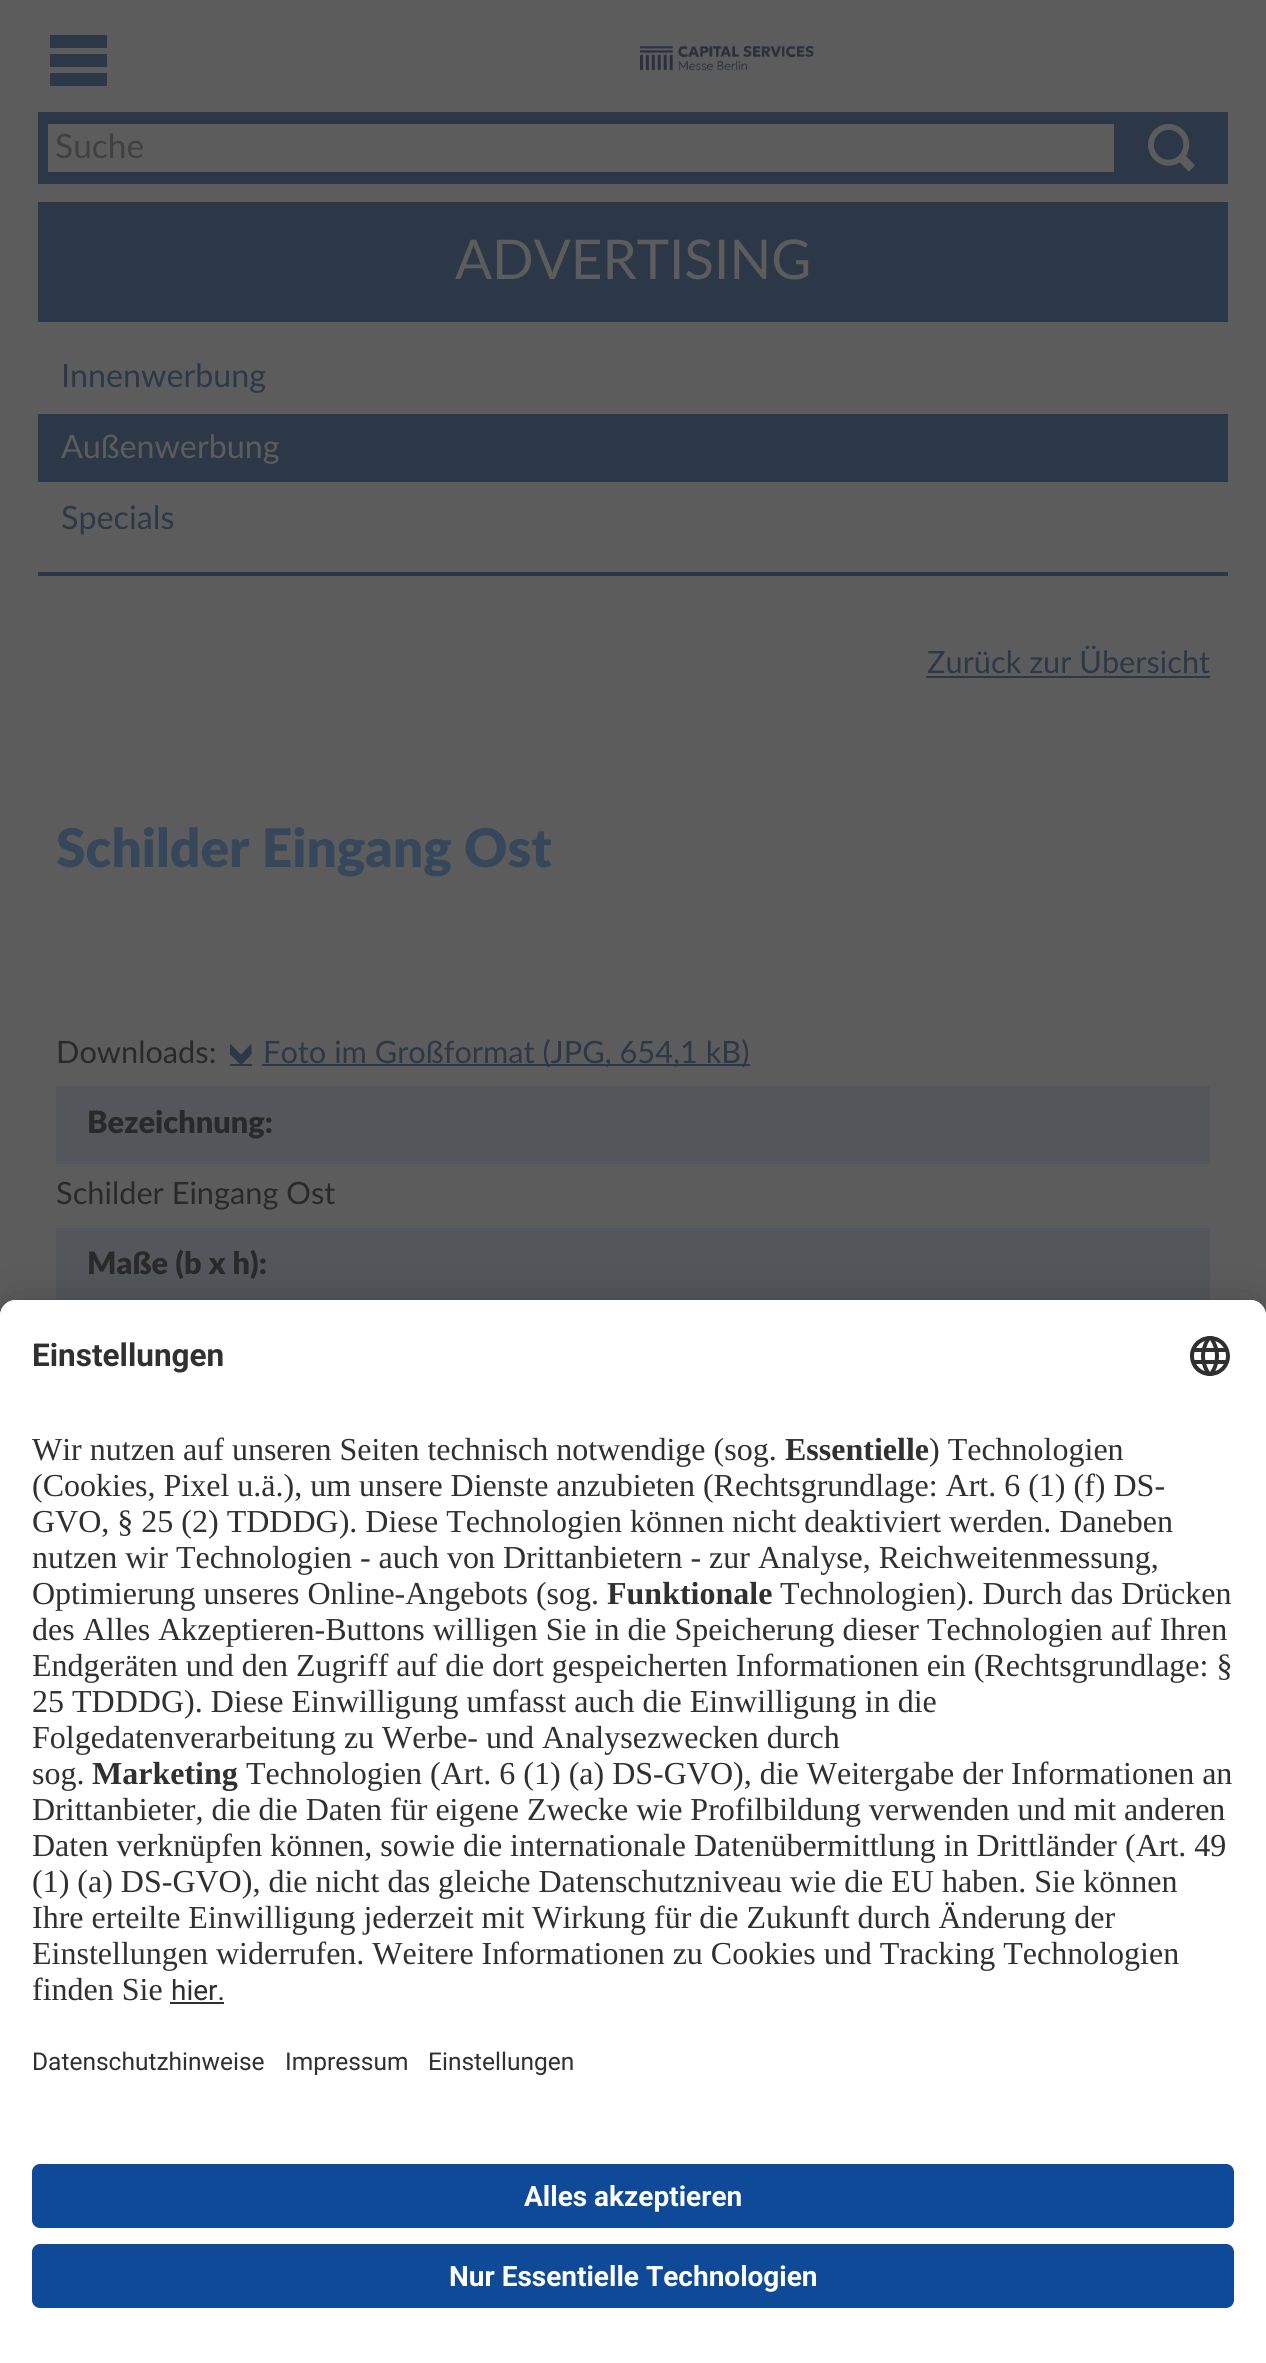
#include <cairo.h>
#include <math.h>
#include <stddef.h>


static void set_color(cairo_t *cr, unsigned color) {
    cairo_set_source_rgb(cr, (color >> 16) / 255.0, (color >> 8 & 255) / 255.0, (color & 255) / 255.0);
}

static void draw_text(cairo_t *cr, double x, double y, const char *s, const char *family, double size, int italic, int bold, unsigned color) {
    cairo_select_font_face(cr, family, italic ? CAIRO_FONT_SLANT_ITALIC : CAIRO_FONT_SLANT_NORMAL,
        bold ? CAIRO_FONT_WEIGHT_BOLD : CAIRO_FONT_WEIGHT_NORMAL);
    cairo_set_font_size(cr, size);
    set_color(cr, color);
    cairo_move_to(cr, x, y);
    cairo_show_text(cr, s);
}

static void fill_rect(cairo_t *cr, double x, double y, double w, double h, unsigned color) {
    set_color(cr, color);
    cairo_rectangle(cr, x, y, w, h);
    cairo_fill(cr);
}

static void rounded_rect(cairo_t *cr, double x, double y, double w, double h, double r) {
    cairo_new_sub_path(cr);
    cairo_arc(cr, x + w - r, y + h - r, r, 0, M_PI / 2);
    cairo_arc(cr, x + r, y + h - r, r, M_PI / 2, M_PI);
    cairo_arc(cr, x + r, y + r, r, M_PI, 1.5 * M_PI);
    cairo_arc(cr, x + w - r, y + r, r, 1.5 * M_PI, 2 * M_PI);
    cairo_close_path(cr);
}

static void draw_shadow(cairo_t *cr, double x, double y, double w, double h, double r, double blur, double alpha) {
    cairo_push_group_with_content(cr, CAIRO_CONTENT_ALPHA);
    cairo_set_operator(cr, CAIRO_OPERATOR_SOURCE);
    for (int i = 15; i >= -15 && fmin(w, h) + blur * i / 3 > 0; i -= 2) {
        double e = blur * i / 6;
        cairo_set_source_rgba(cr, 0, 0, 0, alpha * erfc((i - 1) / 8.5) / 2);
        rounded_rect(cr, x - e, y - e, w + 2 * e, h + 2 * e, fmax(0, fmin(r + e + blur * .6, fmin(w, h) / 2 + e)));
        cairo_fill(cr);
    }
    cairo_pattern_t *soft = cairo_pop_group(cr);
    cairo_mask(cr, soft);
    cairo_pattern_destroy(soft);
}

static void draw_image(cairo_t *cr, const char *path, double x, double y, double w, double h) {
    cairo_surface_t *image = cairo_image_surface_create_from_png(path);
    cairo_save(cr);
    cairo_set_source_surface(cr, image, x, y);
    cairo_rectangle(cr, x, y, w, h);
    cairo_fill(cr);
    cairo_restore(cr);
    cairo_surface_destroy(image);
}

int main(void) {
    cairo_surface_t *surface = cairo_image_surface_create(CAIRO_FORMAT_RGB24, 1266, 2363);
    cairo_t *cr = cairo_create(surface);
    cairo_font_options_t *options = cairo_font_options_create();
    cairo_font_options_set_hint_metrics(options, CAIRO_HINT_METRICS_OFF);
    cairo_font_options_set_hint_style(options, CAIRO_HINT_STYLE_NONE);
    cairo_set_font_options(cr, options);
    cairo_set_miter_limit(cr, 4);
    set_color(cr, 0x5C5C5C);
    cairo_paint(cr);
    set_color(cr, 0x2C3847);
    cairo_new_path(cr);
    cairo_move_to(cr, 50, 73);
    cairo_line_to(cr, 107, 73);
    cairo_line_to(cr, 107, 86);
    cairo_line_to(cr, 50, 86);
    cairo_close_path(cr);
    cairo_move_to(cr, 50, 35);
    cairo_line_to(cr, 50, 48);
    cairo_line_to(cr, 107, 48);
    cairo_line_to(cr, 107, 35);
    cairo_close_path(cr);
    cairo_move_to(cr, 50, 54);
    cairo_line_to(cr, 50, 67);
    cairo_line_to(cr, 107, 67);
    cairo_line_to(cr, 107, 54);
    cairo_close_path(cr);
    cairo_fill(cr);
    draw_image(cr, "assets/img1.png", 640, 45, 174, 26);
    fill_rect(cr, 38, 112, 1190, 72, 0x2C3847);
    fill_rect(cr, 48, 124, 1066, 48, 0x5C5C5C);
    draw_text(cr, 55, 158, "Suche", "Lato", 33.5, 0, 0, 0x404040);
    draw_image(cr, "assets/img2.png", 1148, 123, 47, 48);
    fill_rect(cr, 38, 202, 1190, 120, 0x2C3847);
    draw_text(cr, 455, 279, "ADVERTISING", "Lato", 54.75, 0, 0, 0x5C5C5C);
    fill_rect(cr, 38, 572, 1190, 4, 0x2C3847);
    draw_text(cr, 61, 387, "Innenwerbung", "Lato", 32.25, 0, 0, 0x2C3847);
    fill_rect(cr, 38, 414, 1190, 68, 0x2C3847);
    draw_text(cr, 61, 458, "Außenwerbung", "Lato", 32.25, 0, 0, 0x5C5C5C);
    draw_text(cr, 61, 529, "Specials", "Lato", 32.25, 0, 0, 0x2C3847);
    draw_text(cr, 927, 673, "Zurück zur Übersicht", "Lato", 30.75, 0, 0, 0x2C3847);
    fill_rect(cr, 926, 676, 284, 2, 0x2C3847);
    draw_text(cr, 56, 867, "Schilder Eingang Ost", "Lato Black", 53.25, 0, 0, 0x36475C);
    draw_text(cr, 56, 1063, "Downloads:", "Lato", 30.75, 0, 0, 0x292929);
    fill_rect(cr, 230, 1064, 22, 2, 0x2C3847);
    cairo_new_path(cr);
    cairo_move_to(cr, 230, 1054.5);
    cairo_line_to(cr, 230, 1043.5);
    cairo_line_to(cr, 241, 1054.5);
    cairo_line_to(cr, 251.5, 1043.5);
    cairo_line_to(cr, 251.5, 1054.5);
    cairo_line_to(cr, 241, 1065);
    cairo_close_path(cr);
    cairo_fill(cr);
    fill_rect(cr, 262, 1064, 488, 2, 0x2C3847);
    draw_text(cr, 263, 1063, "Foto im Großformat (JPG, 654,1 kB)", "Lato", 30.75, 0, 0, 0x2C3847);
    fill_rect(cr, 56, 1086, 1154, 78, 0x53575B);
    draw_text(cr, 87, 1133, "Bezeichnung:", "Lato Black", 30.75, 0, 0, 0x292929);
    draw_text(cr, 56, 1204, "Schilder Eingang Ost", "Lato", 30.75, 0, 0, 0x292929);
    fill_rect(cr, 56, 1228, 1154, 72, 0x53575B);
    draw_text(cr, 87, 1274, "Maße (b x h):", "Lato Black", 30.75, 0, 0, 0x292929);
    set_color(cr, 0x000000);
    draw_shadow(cr, 0, 1340, 1266, 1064, 16, 28, 0.3);
    draw_shadow(cr, 0, 1310, 1266, 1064, 16, 26, 0.22);
    set_color(cr, 0xFFFFFF);
    cairo_new_path(cr);
    cairo_move_to(cr, 16, 1300);
    cairo_line_to(cr, 1250, 1300);
    cairo_curve_to(cr, 1259, 1300, 1266, 1307, 1266, 1316);
    cairo_line_to(cr, 1266, 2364);
    cairo_line_to(cr, 0, 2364);
    cairo_line_to(cr, 0, 1316);
    cairo_curve_to(cr, 0, 1307, 7, 1300, 16, 1300);
    cairo_close_path(cr);
    cairo_fill(cr);
    cairo_new_path(cr);
    cairo_move_to(cr, 16, 1300);
    cairo_line_to(cr, 1250, 1300);
    cairo_curve_to(cr, 1259, 1300, 1266, 1307, 1266, 1316);
    cairo_line_to(cr, 1266, 2140);
    cairo_line_to(cr, 0, 2140);
    cairo_line_to(cr, 0, 1316);
    cairo_curve_to(cr, 0, 1307, 7, 1300, 16, 1300);
    cairo_close_path(cr);
    cairo_fill(cr);
    draw_text(cr, 32, 1366, "Einstellungen", "Roboto", 31.5, 0, 1, 0x303030);
    draw_image(cr, "assets/img3.png", 1190, 1336, 40, 40);
    draw_text(cr, 32, 1460, "Wir nutzen auf unseren Seiten technisch notwendige (sog.", "Liberation Serif", 32, 0, 0, 0x303030);
    draw_text(cr, 785, 1460, "Essentielle", "Liberation Serif", 32, 0, 1, 0x303030);
    draw_text(cr, 929, 1460, ") Technologien", "Liberation Serif", 32, 0, 0, 0x303030);
    draw_text(cr, 32, 1496, "(Cookies, Pixel u.ä.), um unsere Dienste anzubieten (Rechtsgrundlage: Art. 6 (1) (f) DS-", "Liberation Serif", 32, 0, 0, 0x303030);
    draw_text(cr, 32, 1532, "GVO, § 25 (2) TDDDG). Diese Technologien können nicht deaktiviert werden. Daneben", "Liberation Serif", 32, 0, 0, 0x303030);
    draw_text(cr, 32, 1568, "nutzen wir Technologien - auch von Drittanbietern - zur Analyse, Reichweitenmessung,", "Liberation Serif", 32, 0, 0, 0x303030);
    draw_text(cr, 32, 1604, "Optimierung unseres Online-Angebots (sog.", "Liberation Serif", 32, 0, 0, 0x303030);
    draw_text(cr, 607, 1604, "Funktionale", "Liberation Serif", 32, 0, 1, 0x303030);
    draw_text(cr, 780, 1604, "Technologien). Durch das Drücken", "Liberation Serif", 32, 0, 0, 0x303030);
    draw_text(cr, 32, 1640, "des Alles Akzeptieren-Buttons willigen Sie in die Speicherung dieser Technologien auf Ihren", "Liberation Serif", 32, 0, 0, 0x303030);
    draw_text(cr, 32, 1676, "Endgeräten und den Zugriff auf die dort gespeicherten Informationen ein (Rechtsgrundlage: §", "Liberation Serif", 32, 0, 0, 0x303030);
    draw_text(cr, 32, 1712, "25 TDDDG). Diese Einwilligung umfasst auch die Einwilligung in die", "Liberation Serif", 32, 0, 0, 0x303030);
    draw_text(cr, 32, 1748, "Folgedatenverarbeitung zu Werbe- und Analysezwecken durch", "Liberation Serif", 32, 0, 0, 0x303030);
    draw_text(cr, 32, 1784, "sog.", "Liberation Serif", 32, 0, 0, 0x303030);
    draw_text(cr, 92, 1784, "Marketing", "Liberation Serif", 32, 0, 1, 0x303030);
    draw_text(cr, 246, 1784, "Technologien", "Liberation Serif", 32, 0, 0, 0x303030);
    draw_text(cr, 430, 1784, "(Art. 6 (1) (a) DS-GVO), die Weitergabe der Informationen an", "Liberation Serif", 32, 0, 0, 0x303030);
    draw_text(cr, 32, 1820, "Drittanbieter, die die Daten für eigene Zwecke wie Profilbildung verwenden und mit anderen", "Liberation Serif", 32, 0, 0, 0x303030);
    draw_text(cr, 32, 1856, "Daten verknüpfen können, sowie die internationale Datenübermittlung in Drittländer (Art. 49", "Liberation Serif", 32, 0, 0, 0x303030);
    draw_text(cr, 32, 1892, "(1) (a) DS-GVO), die nicht das gleiche Datenschutzniveau wie die EU haben. Sie können", "Liberation Serif", 32, 0, 0, 0x303030);
    draw_text(cr, 32, 1928, "Ihre erteilte Einwilligung jederzeit mit Wirkung für die Zukunft durch Änderung der", "Liberation Serif", 32, 0, 0, 0x303030);
    draw_text(cr, 32, 1964, "Einstellungen widerrufen. Weitere Informationen zu Cookies und Tracking Technologien", "Liberation Serif", 32, 0, 0, 0x303030);
    draw_text(cr, 32, 2000, "finden Sie", "Liberation Serif", 32, 0, 0, 0x303030);
    draw_text(cr, 171, 2000, "hier.", "Roboto", 28, 0, 0, 0x303030);
    fill_rect(cr, 170, 2002, 54, 2, 0x303030);
    draw_text(cr, 32, 2070, "Datenschutzhinweise", "Roboto", 24.5, 0, 0, 0x303030);
    draw_text(cr, 285, 2070, "Impressum", "Roboto", 24.5, 0, 0, 0x303030);
    draw_text(cr, 428, 2070, "Einstellungen", "Roboto", 24.5, 0, 0, 0x303030);
    set_color(cr, 0x0E4A98);
    rounded_rect(cr, 32, 2164, 1202, 64, 8);
    cairo_fill(cr);
    draw_text(cr, 524, 2206, "Alles akzeptieren", "Roboto", 28, 0, 1, 0xFFFFFF);
    set_color(cr, 0x0E4A98);
    rounded_rect(cr, 32, 2244, 1202, 64, 8);
    cairo_fill(cr);
    draw_text(cr, 449, 2286, "Nur Essentielle Technologien", "Roboto", 28, 0, 1, 0xFFFFFF);
    cairo_surface_write_to_png(surface, "output.png");
    cairo_font_options_destroy(options);
    cairo_destroy(cr);
    cairo_surface_destroy(surface);
    return 0;
}
